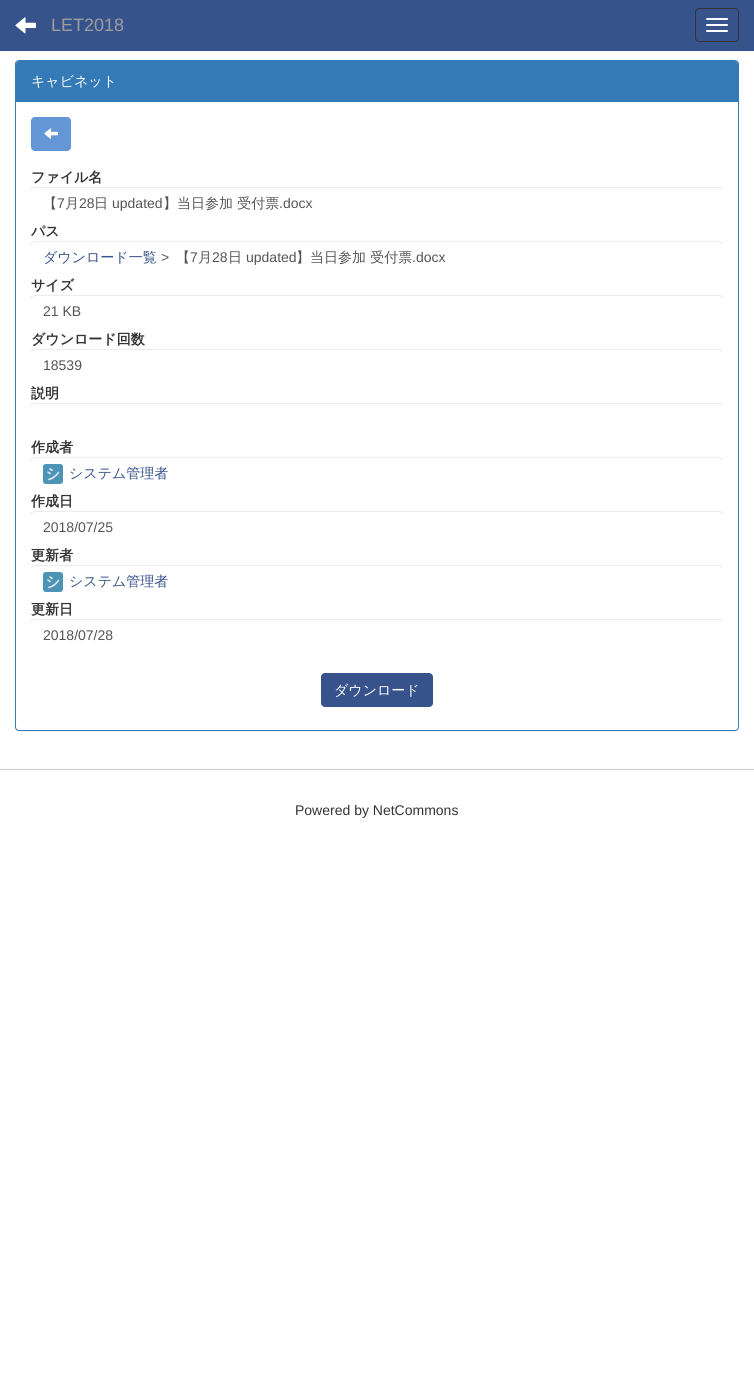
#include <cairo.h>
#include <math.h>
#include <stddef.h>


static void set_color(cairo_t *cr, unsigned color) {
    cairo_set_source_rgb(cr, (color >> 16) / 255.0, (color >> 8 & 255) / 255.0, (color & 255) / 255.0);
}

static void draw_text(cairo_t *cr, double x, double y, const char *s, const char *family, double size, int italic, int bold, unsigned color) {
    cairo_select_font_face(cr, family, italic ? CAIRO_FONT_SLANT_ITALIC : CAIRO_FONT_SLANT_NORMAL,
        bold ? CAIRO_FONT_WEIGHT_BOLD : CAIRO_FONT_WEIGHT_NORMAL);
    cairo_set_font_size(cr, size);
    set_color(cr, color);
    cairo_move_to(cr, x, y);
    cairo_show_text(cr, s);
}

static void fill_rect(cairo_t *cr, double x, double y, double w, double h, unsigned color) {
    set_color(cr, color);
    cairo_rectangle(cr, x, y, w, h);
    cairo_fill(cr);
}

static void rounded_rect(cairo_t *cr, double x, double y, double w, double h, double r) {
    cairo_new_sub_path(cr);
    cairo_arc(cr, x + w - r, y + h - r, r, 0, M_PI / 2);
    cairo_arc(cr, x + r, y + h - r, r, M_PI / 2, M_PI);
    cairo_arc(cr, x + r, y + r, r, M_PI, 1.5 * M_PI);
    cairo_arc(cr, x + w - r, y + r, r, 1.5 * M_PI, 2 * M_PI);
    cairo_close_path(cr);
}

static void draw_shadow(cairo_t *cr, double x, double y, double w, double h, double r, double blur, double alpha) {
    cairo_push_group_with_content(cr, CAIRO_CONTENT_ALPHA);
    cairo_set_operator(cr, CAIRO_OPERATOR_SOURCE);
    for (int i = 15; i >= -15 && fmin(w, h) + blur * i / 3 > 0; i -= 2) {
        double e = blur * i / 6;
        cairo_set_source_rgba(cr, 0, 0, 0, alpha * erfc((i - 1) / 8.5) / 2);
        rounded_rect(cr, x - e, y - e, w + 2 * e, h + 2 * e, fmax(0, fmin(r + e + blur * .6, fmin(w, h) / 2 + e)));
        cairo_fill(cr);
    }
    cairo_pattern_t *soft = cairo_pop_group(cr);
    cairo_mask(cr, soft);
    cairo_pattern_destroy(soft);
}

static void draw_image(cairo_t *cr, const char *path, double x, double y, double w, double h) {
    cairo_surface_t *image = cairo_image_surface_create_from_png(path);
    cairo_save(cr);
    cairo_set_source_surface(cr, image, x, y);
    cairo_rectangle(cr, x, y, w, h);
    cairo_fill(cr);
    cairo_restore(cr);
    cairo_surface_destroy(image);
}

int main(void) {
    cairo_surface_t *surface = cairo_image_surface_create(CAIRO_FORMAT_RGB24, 754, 1380);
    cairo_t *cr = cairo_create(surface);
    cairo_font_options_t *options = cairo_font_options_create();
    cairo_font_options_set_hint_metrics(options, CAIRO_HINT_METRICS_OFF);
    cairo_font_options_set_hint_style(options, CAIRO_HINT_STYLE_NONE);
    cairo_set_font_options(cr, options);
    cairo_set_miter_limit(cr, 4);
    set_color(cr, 0xFFFFFF);
    cairo_paint(cr);
    fill_rect(cr, 0, 0, 754, 51, 0x37538C);
    draw_image(cr, "assets/img1.png", 15, 17, 21, 17);
    draw_text(cr, 51, 31, "LET2018", "Liberation Sans", 18, 0, 0, 0x9D9D9D);
    rounded_rect(cr, 695.5, 8.5, 43, 33, 3.5);
    set_color(cr, 0x333333);
    cairo_set_line_width(cr, 1);
    cairo_stroke(cr);
    set_color(cr, 0xFFFFFF);
    rounded_rect(cr, 706, 18, 22, 2, 1);
    cairo_fill(cr);
    rounded_rect(cr, 706, 24, 22, 2, 1);
    cairo_fill(cr);
    rounded_rect(cr, 706, 30, 22, 2, 1);
    cairo_fill(cr);
    set_color(cr, 0x000000);
    draw_shadow(cr, 15, 61, 724, 671, 4, 0.5, 0.05);
    set_color(cr, 0xFFFFFF);
    rounded_rect(cr, 15.5, 60.5, 723, 670, 3.5);
    cairo_fill_preserve(cr);
    set_color(cr, 0x337AB7);
    cairo_stroke(cr);
    cairo_new_path(cr);
    cairo_move_to(cr, 19, 61);
    cairo_line_to(cr, 735, 61);
    cairo_curve_to(cr, 736.5, 61, 738, 62.5, 738, 64);
    cairo_line_to(cr, 738, 102);
    cairo_line_to(cr, 16, 102);
    cairo_line_to(cr, 16, 64);
    cairo_curve_to(cr, 16, 62.5, 17.5, 61, 19, 61);
    cairo_close_path(cr);
    cairo_fill(cr);
    draw_text(cr, 31, 86, "キャビネット", "WenQuanYi Zen Hei Medium", 14, 0, 0, 0xFFFFFF);
    set_color(cr, 0x6596D6);
    rounded_rect(cr, 31.5, 117.5, 39, 33, 3.5);
    cairo_fill_preserve(cr);
    cairo_stroke(cr);
    draw_image(cr, "assets/img2.png", 44, 128, 14, 11);
    draw_text(cr, 31, 182, "ファイル名", "WenQuanYi Zen Hei", 14, 0, 1, 0x333333);
    set_color(cr, 0xECECEC);
    cairo_new_path(cr);
    cairo_move_to(cr, 35, 188);
    cairo_line_to(cr, 719, 188);
    cairo_curve_to(cr, 721, 188, 723, 190, 723, 192);
    cairo_curve_to(cr, 723, 189, 722, 187, 719, 187);
    cairo_line_to(cr, 35, 187);
    cairo_line_to(cr, 32, 188);
    cairo_line_to(cr, 31, 189);
    cairo_line_to(cr, 31, 192);
    cairo_curve_to(cr, 31, 190, 33, 188, 35, 188);
    cairo_close_path(cr);
    cairo_fill(cr);
    draw_text(cr, 43, 208, "【", "WenQuanYi Zen Hei Medium", 14, 0, 0, 0x555555);
    draw_text(cr, 57, 208, "7", "Liberation Sans", 14, 0, 0, 0x555555);
    draw_text(cr, 65, 208, "月", "WenQuanYi Zen Hei Medium", 14, 0, 0, 0x555555);
    draw_text(cr, 79, 208, "28", "Liberation Sans", 14, 0, 0, 0x555555);
    draw_text(cr, 94, 208, "日", "WenQuanYi Zen Hei Medium", 14, 0, 0, 0x555555);
    draw_text(cr, 112, 208, "updated", "Liberation Sans", 14, 0, 0, 0x555555);
    draw_text(cr, 163, 208, "】当日参加 受付票", "WenQuanYi Zen Hei Medium", 14, 0, 0, 0x555555);
    draw_text(cr, 279, 208, ".docx", "Liberation Sans", 14, 0, 0, 0x555555);
    draw_text(cr, 31, 236, "パス", "WenQuanYi Zen Hei", 14, 0, 1, 0x333333);
    set_color(cr, 0xECECEC);
    cairo_new_path(cr);
    cairo_move_to(cr, 35, 242);
    cairo_line_to(cr, 719, 242);
    cairo_curve_to(cr, 721, 242, 723, 244, 723, 246);
    cairo_curve_to(cr, 723, 243, 722, 241, 719, 241);
    cairo_line_to(cr, 35, 241);
    cairo_line_to(cr, 32, 242);
    cairo_line_to(cr, 31, 243);
    cairo_line_to(cr, 31, 246);
    cairo_curve_to(cr, 31, 244, 33, 242, 35, 242);
    cairo_close_path(cr);
    cairo_fill(cr);
    draw_text(cr, 43, 262, "ダウンロード一覧", "WenQuanYi Zen Hei Medium", 14, 0, 0, 0x37538C);
    draw_text(cr, 161, 262, ">", "Liberation Sans", 14, 0, 0, 0x555555);
    draw_text(cr, 176, 262, "【", "WenQuanYi Zen Hei Medium", 14, 0, 0, 0x555555);
    draw_text(cr, 190, 262, "7", "Liberation Sans", 14, 0, 0, 0x555555);
    draw_text(cr, 198, 262, "月", "WenQuanYi Zen Hei Medium", 14, 0, 0, 0x555555);
    draw_text(cr, 212, 262, "28", "Liberation Sans", 14, 0, 0, 0x555555);
    draw_text(cr, 228, 262, "日", "WenQuanYi Zen Hei Medium", 14, 0, 0, 0x555555);
    draw_text(cr, 246, 262, "updated", "Liberation Sans", 14, 0, 0, 0x555555);
    draw_text(cr, 296, 262, "】当日参加 受付票", "WenQuanYi Zen Hei Medium", 14, 0, 0, 0x555555);
    draw_text(cr, 412, 262, ".docx", "Liberation Sans", 14, 0, 0, 0x555555);
    draw_text(cr, 31, 290, "サイズ", "WenQuanYi Zen Hei", 14, 0, 1, 0x333333);
    set_color(cr, 0xECECEC);
    cairo_new_path(cr);
    cairo_move_to(cr, 35, 296);
    cairo_line_to(cr, 719, 296);
    cairo_curve_to(cr, 721, 296, 723, 298, 723, 300);
    cairo_curve_to(cr, 723, 297, 722, 295, 719, 295);
    cairo_line_to(cr, 35, 295);
    cairo_line_to(cr, 32, 296);
    cairo_line_to(cr, 31, 297);
    cairo_line_to(cr, 31, 300);
    cairo_curve_to(cr, 31, 298, 33, 296, 35, 296);
    cairo_close_path(cr);
    cairo_fill(cr);
    draw_text(cr, 43, 316, "21 KB", "Liberation Sans", 14, 0, 0, 0x555555);
    draw_text(cr, 31, 344, "ダウンロード回数", "WenQuanYi Zen Hei", 14, 0, 1, 0x333333);
    set_color(cr, 0xECECEC);
    cairo_new_path(cr);
    cairo_move_to(cr, 35, 350);
    cairo_line_to(cr, 719, 350);
    cairo_curve_to(cr, 721, 350, 723, 352, 723, 354);
    cairo_curve_to(cr, 723, 351, 722, 349, 719, 349);
    cairo_line_to(cr, 35, 349);
    cairo_line_to(cr, 32, 350);
    cairo_line_to(cr, 31, 351);
    cairo_line_to(cr, 31, 354);
    cairo_curve_to(cr, 31, 352, 33, 350, 35, 350);
    cairo_close_path(cr);
    cairo_fill(cr);
    draw_text(cr, 43, 370, "18539", "Liberation Sans", 14, 0, 0, 0x555555);
    draw_text(cr, 31, 398, "説明", "WenQuanYi Zen Hei", 14, 0, 1, 0x333333);
    set_color(cr, 0xECECEC);
    cairo_new_path(cr);
    cairo_move_to(cr, 35, 404);
    cairo_line_to(cr, 719, 404);
    cairo_curve_to(cr, 721, 404, 723, 406, 723, 408);
    cairo_curve_to(cr, 723, 405, 722, 403, 719, 403);
    cairo_line_to(cr, 35, 403);
    cairo_line_to(cr, 32, 404);
    cairo_line_to(cr, 31, 405);
    cairo_line_to(cr, 31, 408);
    cairo_curve_to(cr, 31, 406, 33, 404, 35, 404);
    cairo_close_path(cr);
    cairo_fill(cr);
    draw_text(cr, 31, 452, "作成者", "WenQuanYi Zen Hei", 14, 0, 1, 0x333333);
    set_color(cr, 0xECECEC);
    cairo_new_path(cr);
    cairo_move_to(cr, 35, 458);
    cairo_line_to(cr, 719, 458);
    cairo_curve_to(cr, 721, 458, 723, 460, 723, 462);
    cairo_curve_to(cr, 723, 459, 722, 457, 719, 457);
    cairo_line_to(cr, 35, 457);
    cairo_line_to(cr, 32, 458);
    cairo_line_to(cr, 31, 459);
    cairo_line_to(cr, 31, 462);
    cairo_curve_to(cr, 31, 460, 33, 458, 35, 458);
    cairo_close_path(cr);
    cairo_fill(cr);
    draw_image(cr, "assets/img3.png", 43, 464, 20, 20);
    draw_text(cr, 69, 478, "システム管理者", "WenQuanYi Zen Hei Medium", 14, 0, 0, 0x37538C);
    draw_text(cr, 31, 506, "作成日", "WenQuanYi Zen Hei", 14, 0, 1, 0x333333);
    set_color(cr, 0xECECEC);
    cairo_new_path(cr);
    cairo_move_to(cr, 35, 512);
    cairo_line_to(cr, 719, 512);
    cairo_curve_to(cr, 721, 512, 723, 514, 723, 516);
    cairo_curve_to(cr, 723, 513, 722, 511, 719, 511);
    cairo_line_to(cr, 35, 511);
    cairo_line_to(cr, 32, 512);
    cairo_line_to(cr, 31, 513);
    cairo_line_to(cr, 31, 516);
    cairo_curve_to(cr, 31, 514, 33, 512, 35, 512);
    cairo_close_path(cr);
    cairo_fill(cr);
    draw_text(cr, 43, 532, "2018/07/25", "Liberation Sans", 14, 0, 0, 0x555555);
    draw_text(cr, 31, 560, "更新者", "WenQuanYi Zen Hei", 14, 0, 1, 0x333333);
    set_color(cr, 0xECECEC);
    cairo_new_path(cr);
    cairo_move_to(cr, 35, 566);
    cairo_line_to(cr, 719, 566);
    cairo_curve_to(cr, 721, 566, 723, 568, 723, 570);
    cairo_curve_to(cr, 723, 567, 722, 565, 719, 565);
    cairo_line_to(cr, 35, 565);
    cairo_line_to(cr, 32, 566);
    cairo_line_to(cr, 31, 567);
    cairo_line_to(cr, 31, 570);
    cairo_curve_to(cr, 31, 568, 33, 566, 35, 566);
    cairo_close_path(cr);
    cairo_fill(cr);
    draw_image(cr, "assets/img3.png", 43, 572, 20, 20);
    draw_text(cr, 69, 586, "システム管理者", "WenQuanYi Zen Hei Medium", 14, 0, 0, 0x37538C);
    draw_text(cr, 31, 614, "更新日", "WenQuanYi Zen Hei", 14, 0, 1, 0x333333);
    set_color(cr, 0xECECEC);
    cairo_new_path(cr);
    cairo_move_to(cr, 35, 620);
    cairo_line_to(cr, 719, 620);
    cairo_curve_to(cr, 721, 620, 723, 622, 723, 624);
    cairo_curve_to(cr, 723, 621, 722, 619, 719, 619);
    cairo_line_to(cr, 35, 619);
    cairo_line_to(cr, 32, 620);
    cairo_line_to(cr, 31, 621);
    cairo_line_to(cr, 31, 624);
    cairo_curve_to(cr, 31, 622, 33, 620, 35, 620);
    cairo_close_path(cr);
    cairo_fill(cr);
    draw_text(cr, 43, 640, "2018/07/28", "Liberation Sans", 14, 0, 0, 0x555555);
    set_color(cr, 0x37538C);
    rounded_rect(cr, 321.5, 673.5, 111, 33, 3.5);
    cairo_fill_preserve(cr);
    cairo_stroke(cr);
    draw_text(cr, 334, 695, "ダウンロード", "WenQuanYi Zen Hei Medium", 14, 0, 0, 0xFFFFFF);
    fill_rect(cr, 0, 769, 754, 1, 0xCCCCCC);
    draw_text(cr, 295, 815, "Powered by NetCommons", "Liberation Sans", 14, 0, 0, 0x333333);
    cairo_surface_write_to_png(surface, "output.png");
    cairo_font_options_destroy(options);
    cairo_destroy(cr);
    cairo_surface_destroy(surface);
    return 0;
}
